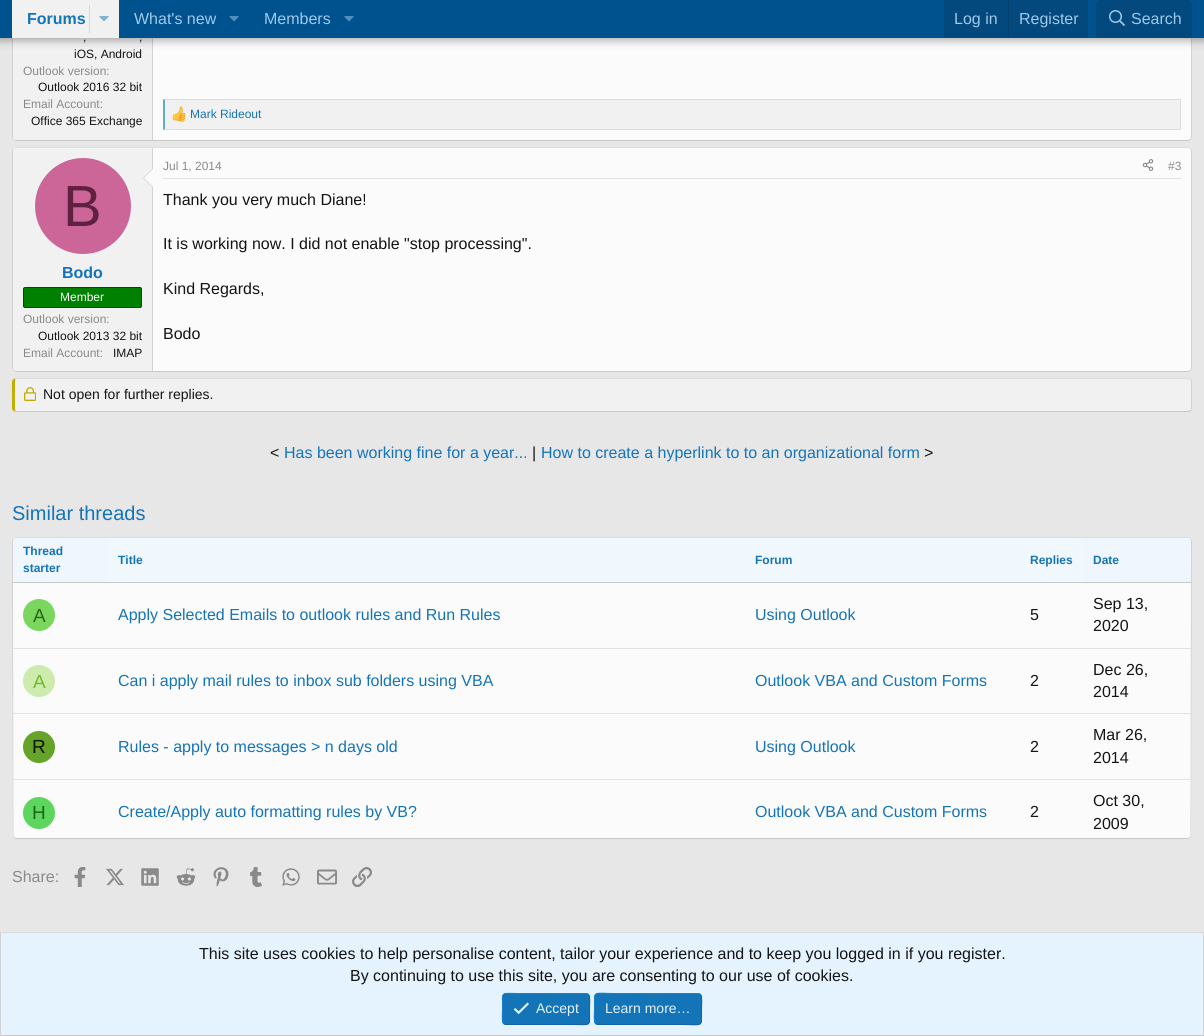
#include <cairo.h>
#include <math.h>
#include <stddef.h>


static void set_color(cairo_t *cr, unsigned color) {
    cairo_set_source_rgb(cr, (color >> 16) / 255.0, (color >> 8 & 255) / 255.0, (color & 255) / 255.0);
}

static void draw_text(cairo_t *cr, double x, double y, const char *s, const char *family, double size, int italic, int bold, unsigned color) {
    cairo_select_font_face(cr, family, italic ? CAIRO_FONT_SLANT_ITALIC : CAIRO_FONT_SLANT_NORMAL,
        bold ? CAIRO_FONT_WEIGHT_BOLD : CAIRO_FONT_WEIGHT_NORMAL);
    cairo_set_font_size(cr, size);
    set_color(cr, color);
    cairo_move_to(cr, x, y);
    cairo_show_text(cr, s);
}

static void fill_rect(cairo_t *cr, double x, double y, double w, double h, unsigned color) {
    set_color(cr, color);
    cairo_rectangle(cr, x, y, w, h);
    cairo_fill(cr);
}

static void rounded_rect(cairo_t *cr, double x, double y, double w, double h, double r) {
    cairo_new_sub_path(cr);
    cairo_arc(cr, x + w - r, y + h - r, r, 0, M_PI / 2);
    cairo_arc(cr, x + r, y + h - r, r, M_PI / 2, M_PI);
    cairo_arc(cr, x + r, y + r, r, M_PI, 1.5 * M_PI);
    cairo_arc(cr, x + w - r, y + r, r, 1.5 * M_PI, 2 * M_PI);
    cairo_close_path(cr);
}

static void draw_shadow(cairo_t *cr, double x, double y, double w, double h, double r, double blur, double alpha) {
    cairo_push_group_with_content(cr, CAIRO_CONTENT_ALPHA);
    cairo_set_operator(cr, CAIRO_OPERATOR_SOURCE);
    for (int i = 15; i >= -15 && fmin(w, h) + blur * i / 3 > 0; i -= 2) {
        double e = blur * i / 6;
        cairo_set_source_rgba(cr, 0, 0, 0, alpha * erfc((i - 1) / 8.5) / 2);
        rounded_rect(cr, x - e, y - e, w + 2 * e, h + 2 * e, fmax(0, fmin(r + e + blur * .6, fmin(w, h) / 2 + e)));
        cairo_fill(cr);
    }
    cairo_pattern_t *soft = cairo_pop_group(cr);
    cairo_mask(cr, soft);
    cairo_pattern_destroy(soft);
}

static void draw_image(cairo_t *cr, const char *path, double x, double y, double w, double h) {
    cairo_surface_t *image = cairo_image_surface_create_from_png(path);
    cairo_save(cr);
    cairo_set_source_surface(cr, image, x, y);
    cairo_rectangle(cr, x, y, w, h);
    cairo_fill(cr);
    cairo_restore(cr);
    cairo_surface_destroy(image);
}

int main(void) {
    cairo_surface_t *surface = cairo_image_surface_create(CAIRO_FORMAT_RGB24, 1204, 1036);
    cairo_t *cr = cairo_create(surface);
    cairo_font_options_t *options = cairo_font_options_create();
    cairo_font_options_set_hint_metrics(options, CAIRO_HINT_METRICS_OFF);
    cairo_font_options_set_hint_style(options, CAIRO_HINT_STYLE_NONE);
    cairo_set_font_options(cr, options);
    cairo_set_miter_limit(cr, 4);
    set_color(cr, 0xE7E7E7);
    cairo_paint(cr);
    set_color(cr, 0xFBFBFB);
    rounded_rect(cr, 12, -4, 1180, 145, 4);
    cairo_fill(cr);
    cairo_new_path(cr);
    cairo_move_to(cr, 1190.5, -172.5);
    cairo_line_to(cr, 1191.5, -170);
    cairo_line_to(cr, 1191.5, 137);
    cairo_line_to(cr, 1190.5, 139.5);
    set_color(cr, 0xD2D2D2);
    cairo_set_line_width(cr, 1);
    cairo_stroke(cr);
    cairo_new_path(cr);
    cairo_move_to(cr, 1190.5, 139.5);
    cairo_line_to(cr, 1188, 140.5);
    cairo_line_to(cr, 16, 140.5);
    cairo_line_to(cr, 13.5, 139.5);
    set_color(cr, 0xC8C8C8);
    cairo_stroke(cr);
    cairo_new_path(cr);
    cairo_move_to(cr, 13.5, 139.5);
    cairo_line_to(cr, 12.5, 137);
    cairo_line_to(cr, 12.5, -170);
    cairo_line_to(cr, 13.5, -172.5);
    set_color(cr, 0xD2D2D2);
    cairo_stroke(cr);
    set_color(cr, 0xF1F1F1);
    cairo_new_path(cr);
    cairo_move_to(cr, 16, -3);
    cairo_line_to(cr, 153, -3);
    cairo_line_to(cr, 153, 140);
    cairo_line_to(cr, 16, 140);
    cairo_curve_to(cr, 14.5, 140, 13, 138.5, 13, 137);
    cairo_line_to(cr, 13, 0);
    cairo_curve_to(cr, 13, -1.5, 14.5, -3, 16, -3);
    cairo_close_path(cr);
    cairo_fill(cr);
    fill_rect(cr, 152, 38, 1, 102, 0xD2D2D2);
    set_color(cr, 0x000000);
    draw_shadow(cr, -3, -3, 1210, 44, 0, 4, 0.3);
    fill_rect(cr, 0, 0, 1204, 38, 0x00528F);
    fill_rect(cr, 12, 0, 107, 38, 0xF1F1F1);
    draw_text(cr, 27, 24, "Forums", "Liberation Sans", 16, 0, 1, 0x1474B8);
    fill_rect(cr, 89, 5, 1, 28, 0xCBDBE7);
    draw_image(cr, "assets/img1.png", 99, 16, 10, 6);
    draw_text(cr, 134, 24, "What's new", "Liberation Sans", 16, 0, 0, 0x9FC9EA);
    draw_image(cr, "assets/img2.png", 229, 16, 10, 6);
    draw_text(cr, 264, 24, "Members", "Liberation Sans", 16, 0, 0, 0x9FC9EA);
    draw_image(cr, "assets/img2.png", 344, 16, 10, 6);
    fill_rect(cr, 944, 0, 144, 38, 0x03497D);
    draw_text(cr, 954, 24, "Log in", "Liberation Sans", 16, 0, 0, 0x9FC9EA);
    fill_rect(cr, 1008, 0, 1, 38, 0x06416D);
    draw_text(cr, 1019, 24, "Register", "Liberation Sans", 16, 0, 0, 0x9FC9EA);
    set_color(cr, 0x03497D);
    cairo_new_path(cr);
    cairo_move_to(cr, 1100, 0);
    cairo_line_to(cr, 1188, 0);
    cairo_curve_to(cr, 1190, 0, 1192, 2, 1192, 4);
    cairo_line_to(cr, 1192, 38);
    cairo_line_to(cr, 1096, 38);
    cairo_line_to(cr, 1096, 4);
    cairo_curve_to(cr, 1096, 2, 1098, 0, 1100, 0);
    cairo_close_path(cr);
    cairo_fill(cr);
    draw_image(cr, "assets/img3.png", 1109, 10, 16, 16);
    draw_text(cr, 1131, 24, "Search", "Liberation Sans", 16, 0, 0, 0x9FC9EA);
    draw_text(cr, 83, 41, ",", "Liberation Sans", 12, 0, 0, 0x141414);
    draw_text(cr, 139, 41, ",", "Liberation Sans", 12, 0, 0, 0x141414);
    draw_text(cr, 74, 58, "iOS, Android", "Liberation Sans", 12, 0, 0, 0x141414);
    draw_text(cr, 23, 75, "Outlook version:", "Liberation Sans", 12, 0, 0, 0x8A8A8A);
    draw_text(cr, 38, 91, "Outlook 2016 32 bit", "Liberation Sans", 12, 0, 0, 0x141414);
    draw_text(cr, 23, 108, "Email Account:", "Liberation Sans", 12, 0, 0, 0x8A8A8A);
    draw_text(cr, 31, 125, "Office 365 Exchange", "Liberation Sans", 12, 0, 0, 0x141414);
    fill_rect(cr, 165, 100, 1015, 29, 0xF1F1F1);
    set_color(cr, 0xDCDCDC);
    cairo_new_path(cr);
    cairo_move_to(cr, 163, 99);
    cairo_line_to(cr, 1181, 99);
    cairo_line_to(cr, 1180, 100);
    cairo_line_to(cr, 165, 100);
    cairo_close_path(cr);
    cairo_fill(cr);
    fill_rect(cr, 1180, 99, 1, 31, 0xDCDCDC);
    cairo_new_path(cr);
    cairo_move_to(cr, 1181, 130);
    cairo_line_to(cr, 163, 130);
    cairo_line_to(cr, 165, 129);
    cairo_line_to(cr, 1180, 129);
    cairo_close_path(cr);
    cairo_fill(cr);
    set_color(cr, 0x63A8CD);
    cairo_new_path(cr);
    cairo_move_to(cr, 163, 130);
    cairo_line_to(cr, 163, 99);
    cairo_line_to(cr, 165, 100);
    cairo_line_to(cr, 165, 129);
    cairo_close_path(cr);
    cairo_fill(cr);
    draw_image(cr, "assets/img4.png", 172, 106, 14, 16);
    draw_text(cr, 190, 118, "Mark Rideout", "Liberation Sans", 12, 0, 0, 0x1474B8);
    set_color(cr, 0xFBFBFB);
    rounded_rect(cr, 12, 147, 1180, 225, 4);
    cairo_fill(cr);
    cairo_new_path(cr);
    cairo_move_to(cr, 13.5, 148.5);
    cairo_line_to(cr, 16, 147.5);
    cairo_line_to(cr, 1188, 147.5);
    cairo_line_to(cr, 1190.5, 148.5);
    set_color(cr, 0xDCDCDC);
    cairo_stroke(cr);
    cairo_new_path(cr);
    cairo_move_to(cr, 1190.5, 148.5);
    cairo_curve_to(cr, 1191, 149, 1191.5, 150, 1191.5, 151);
    cairo_line_to(cr, 1191.5, 368);
    cairo_curve_to(cr, 1191.5, 369, 1191, 370, 1190.5, 370.5);
    set_color(cr, 0xD2D2D2);
    cairo_stroke(cr);
    cairo_new_path(cr);
    cairo_move_to(cr, 1190.5, 370.5);
    cairo_line_to(cr, 1188, 371.5);
    cairo_line_to(cr, 16, 371.5);
    cairo_line_to(cr, 13.5, 370.5);
    set_color(cr, 0xC8C8C8);
    cairo_stroke(cr);
    cairo_new_path(cr);
    cairo_move_to(cr, 13.5, 370.5);
    cairo_curve_to(cr, 13, 370, 12.5, 369, 12.5, 368);
    cairo_line_to(cr, 12.5, 151);
    cairo_curve_to(cr, 12.5, 150, 13, 149, 13.5, 148.5);
    set_color(cr, 0xD2D2D2);
    cairo_stroke(cr);
    set_color(cr, 0xF1F1F1);
    cairo_new_path(cr);
    cairo_move_to(cr, 16, 148);
    cairo_line_to(cr, 153, 148);
    cairo_line_to(cr, 153, 371);
    cairo_line_to(cr, 16, 371);
    cairo_curve_to(cr, 14.5, 371, 13, 369.5, 13, 368);
    cairo_line_to(cr, 13, 151);
    cairo_curve_to(cr, 13, 149.5, 14.5, 148, 16, 148);
    cairo_close_path(cr);
    cairo_fill(cr);
    fill_rect(cr, 152, 148, 1, 223, 0xD2D2D2);
    cairo_new_path(cr);
    cairo_move_to(cr, 153, 168);
    cairo_line_to(cr, 153, 188);
    cairo_line_to(cr, 143, 178);
    cairo_close_path(cr);
    cairo_fill(cr);
    set_color(cr, 0xFBFBFB);
    cairo_new_path(cr);
    cairo_move_to(cr, 153, 169);
    cairo_line_to(cr, 153, 187);
    cairo_line_to(cr, 144, 178);
    cairo_close_path(cr);
    cairo_fill(cr);
    set_color(cr, 0xCC6699);
    cairo_arc(cr, 83, 206, 48, 0, 2 * M_PI);
    cairo_fill(cr);
    draw_text(cr, 63, 226, "B", "Liberation Sans", 58, 0, 0, 0x60203F);
    draw_text(cr, 62, 278, "Bodo", "Liberation Sans", 16, 0, 1, 0x1474B8);
    set_color(cr, 0x008000);
    rounded_rect(cr, 23.5, 287.5, 118, 20, 1.5);
    cairo_fill_preserve(cr);
    set_color(cr, 0x004D00);
    cairo_stroke(cr);
    draw_text(cr, 60, 301, "Member", "Liberation Sans", 12, 0, 0, 0xFFFFFF);
    draw_text(cr, 23, 323, "Outlook version:", "Liberation Sans", 12, 0, 0, 0x8A8A8A);
    draw_text(cr, 38, 340, "Outlook 2013 32 bit", "Liberation Sans", 12, 0, 0, 0x141414);
    draw_text(cr, 23, 357, "Email Account:", "Liberation Sans", 12, 0, 0, 0x8A8A8A);
    draw_text(cr, 113, 357, "IMAP", "Liberation Sans", 12, 0, 0, 0x141414);
    fill_rect(cr, 163, 178, 1018, 1, 0xE2E2E2);
    draw_text(cr, 163, 170, "Jul 1, 2014", "Liberation Sans", 12, 0, 0, 0x8A8A8A);
    draw_image(cr, "assets/img5.png", 1142, 159, 12, 12);
    draw_text(cr, 1168, 170, "#3", "Liberation Sans", 12, 0, 0, 0x8A8A8A);
    draw_text(cr, 163, 205, "Thank you very much Diane!", "Liberation Sans", 16, 0, 0, 0x141414);
    draw_text(cr, 163, 249, "It is working now. I did not enable \"stop processing\".", "Liberation Sans", 16, 0, 0, 0x141414);
    draw_text(cr, 163, 294, "Kind Regards,", "Liberation Sans", 16, 0, 0, 0x141414);
    draw_text(cr, 163, 339, "Bodo", "Liberation Sans", 16, 0, 0, 0x141414);
    set_color(cr, 0xF1F1F1);
    cairo_new_path(cr);
    cairo_move_to(cr, 16, 379);
    cairo_line_to(cr, 1188, 379);
    cairo_curve_to(cr, 1190, 379, 1191, 380, 1191, 382);
    cairo_line_to(cr, 1191, 408);
    cairo_curve_to(cr, 1191, 410, 1190, 411, 1188, 411);
    cairo_line_to(cr, 16, 411);
    cairo_curve_to(cr, 15, 411, 15, 410, 15, 408);
    cairo_line_to(cr, 15, 382);
    cairo_curve_to(cr, 15, 380, 15, 379, 16, 379);
    cairo_close_path(cr);
    cairo_fill(cr);
    set_color(cr, 0xDCDCDC);
    cairo_new_path(cr);
    cairo_move_to(cr, 16, 378);
    cairo_line_to(cr, 14, 379);
    cairo_line_to(cr, 15, 379);
    cairo_line_to(cr, 1188, 379);
    cairo_line_to(cr, 1190, 380);
    cairo_line_to(cr, 1191, 379);
    cairo_line_to(cr, 1188, 378);
    cairo_close_path(cr);
    cairo_fill(cr);
    set_color(cr, 0xD2D2D2);
    cairo_new_path(cr);
    cairo_move_to(cr, 1192, 408);
    cairo_line_to(cr, 1192, 382);
    cairo_curve_to(cr, 1192, 381, 1191.5, 380, 1191, 379);
    cairo_line_to(cr, 1190, 380);
    cairo_curve_to(cr, 1191, 380, 1191, 381, 1191, 382);
    cairo_line_to(cr, 1191, 408);
    cairo_curve_to(cr, 1191, 409, 1191, 410, 1190, 410);
    cairo_line_to(cr, 1191, 411);
    cairo_curve_to(cr, 1191.5, 410, 1192, 409, 1192, 408);
    cairo_close_path(cr);
    cairo_fill(cr);
    set_color(cr, 0xC8C8C8);
    cairo_new_path(cr);
    cairo_move_to(cr, 16, 412);
    cairo_line_to(cr, 1188, 412);
    cairo_line_to(cr, 1191, 411);
    cairo_line_to(cr, 1190, 410);
    cairo_line_to(cr, 1188, 411);
    cairo_line_to(cr, 15, 411);
    cairo_line_to(cr, 14, 411);
    cairo_close_path(cr);
    cairo_fill(cr);
    set_color(cr, 0xC5AC00);
    cairo_new_path(cr);
    cairo_move_to(cr, 12, 382);
    cairo_line_to(cr, 12, 408);
    cairo_curve_to(cr, 12, 409.5, 13, 410.5, 14, 411.5);
    cairo_line_to(cr, 15.5, 411);
    cairo_curve_to(cr, 15, 410.5, 15, 408.5, 15, 408);
    cairo_curve_to(cr, 15, 405, 14.5, 380, 15.5, 379);
    cairo_line_to(cr, 14, 378.5);
    cairo_curve_to(cr, 13, 379.5, 12, 380.5, 12, 382);
    cairo_close_path(cr);
    cairo_fill(cr);
    draw_image(cr, "assets/img6.png", 24, 387, 12, 14);
    draw_text(cr, 43, 399, "Not open for further replies.", "Liberation Sans", 14, 0, 0, 0x141414);
    draw_text(cr, 270, 458, "<", "Liberation Sans", 16, 0, 0, 0x141414);
    draw_text(cr, 284, 458, "Has been working fine for a year...", "Liberation Sans", 16, 0, 0, 0x1474B8);
    draw_text(cr, 532, 458, "|", "Liberation Sans", 16, 0, 0, 0x141414);
    draw_text(cr, 541, 458, "How to create a hyperlink to to an organizational form", "Liberation Sans", 16, 0, 0, 0x1474B8);
    draw_text(cr, 924, 458, ">", "Liberation Sans", 16, 0, 0, 0x141414);
    draw_text(cr, 12, 520, "Similar threads", "Liberation Sans", 20, 0, 0, 0x1474B8);
    set_color(cr, 0xFBFBFB);
    rounded_rect(cr, 12, 537, 1180, 302, 4);
    cairo_fill(cr);
    cairo_new_path(cr);
    cairo_move_to(cr, 13.5, 538.5);
    cairo_line_to(cr, 16, 537.5);
    cairo_line_to(cr, 1188, 537.5);
    cairo_line_to(cr, 1190.5, 538.5);
    set_color(cr, 0xDCDCDC);
    cairo_stroke(cr);
    cairo_new_path(cr);
    cairo_move_to(cr, 1190.5, 538.5);
    cairo_line_to(cr, 1191.5, 541);
    cairo_line_to(cr, 1191, 836.5);
    cairo_line_to(cr, 1190.5, 837.5);
    set_color(cr, 0xD2D2D2);
    cairo_stroke(cr);
    cairo_new_path(cr);
    cairo_move_to(cr, 1190.5, 837.5);
    cairo_line_to(cr, 1188, 838.5);
    cairo_line_to(cr, 16, 838.5);
    cairo_line_to(cr, 13.5, 837.5);
    set_color(cr, 0xC8C8C8);
    cairo_stroke(cr);
    cairo_new_path(cr);
    cairo_move_to(cr, 13.5, 837.5);
    cairo_line_to(cr, 13, 836.5);
    cairo_line_to(cr, 12.5, 590);
    cairo_line_to(cr, 12.5, 541);
    cairo_line_to(cr, 13.5, 538.5);
    set_color(cr, 0xD2D2D2);
    cairo_stroke(cr);
    cairo_set_source_rgba(cr, 0.898, 0.953, 1, 0.5);
    cairo_new_path(cr);
    cairo_move_to(cr, 16, 538);
    cairo_line_to(cr, 108, 538);
    cairo_line_to(cr, 108, 583);
    cairo_line_to(cr, 13, 583);
    cairo_line_to(cr, 13, 541);
    cairo_curve_to(cr, 13, 539.5, 14.5, 538, 16, 538);
    cairo_close_path(cr);
    cairo_fill(cr);
    fill_rect(cr, 13, 582, 1070, 1, 0xC8C8C8);
    draw_text(cr, 23, 555, "Thread", "Liberation Sans", 12, 0, 1, 0x1474B8);
    draw_text(cr, 23, 572, "starter", "Liberation Sans", 12, 0, 1, 0x1474B8);
    fill_rect(cr, 108, 538, 975, 44, 0xF0F7FD);
    draw_text(cr, 118, 564, "Title", "Liberation Sans", 12, 0, 1, 0x1474B8);
    draw_text(cr, 755, 564, "Forum", "Liberation Sans", 12, 0, 1, 0x1474B8);
    draw_text(cr, 1030, 564, "Replies", "Liberation Sans", 12, 0, 1, 0x1474B8);
    cairo_set_source_rgba(cr, 0.898, 0.953, 1, 0.5);
    cairo_new_path(cr);
    cairo_move_to(cr, 1083, 538);
    cairo_line_to(cr, 1188, 538);
    cairo_curve_to(cr, 1189.5, 538, 1191, 539.5, 1191, 541);
    cairo_line_to(cr, 1191, 583);
    cairo_line_to(cr, 1083, 583);
    cairo_close_path(cr);
    cairo_fill(cr);
    fill_rect(cr, 1083, 582, 108, 1, 0xC8C8C8);
    draw_text(cr, 1093, 564, "Date", "Liberation Sans", 12, 0, 1, 0x1474B8);
    fill_rect(cr, 13, 648, 1178, 1, 0xE2E2E2);
    set_color(cr, 0x7AD65C);
    cairo_new_path(cr);
    cairo_arc(cr, 39, 615, 16, 0, 2 * M_PI);
    cairo_fill(cr);
    draw_text(cr, 33, 622, "A", "Liberation Sans", 19, 0, 0, 0x2D661A);
    draw_text(cr, 118, 620, "Apply Selected Emails to outlook rules and Run Rules", "Liberation Sans", 16, 0, 0, 0x1474B8);
    draw_text(cr, 755, 620, "Using Outlook", "Liberation Sans", 16, 0, 0, 0x1474B8);
    draw_text(cr, 1030, 620, "5", "Liberation Sans", 16, 0, 0, 0x141414);
    draw_text(cr, 1093, 609, "Sep 13,", "Liberation Sans", 16, 0, 0, 0x141414);
    draw_text(cr, 1093, 631, "2020", "Liberation Sans", 16, 0, 0, 0x141414);
    fill_rect(cr, 13, 713, 1178, 1, 0xE2E2E2);
    set_color(cr, 0xCCEBAD);
    cairo_new_path(cr);
    cairo_arc(cr, 39, 681, 16, 0, 2 * M_PI);
    cairo_fill(cr);
    draw_text(cr, 33, 688, "A", "Liberation Sans", 19, 0, 0, 0x73B82E);
    draw_text(cr, 118, 686, "Can i apply mail rules to inbox sub folders using VBA", "Liberation Sans", 16, 0, 0, 0x1474B8);
    draw_text(cr, 755, 686, "Outlook VBA and Custom Forms", "Liberation Sans", 16, 0, 0, 0x1474B8);
    draw_text(cr, 1030, 686, "2", "Liberation Sans", 16, 0, 0, 0x141414);
    draw_text(cr, 1093, 675, "Dec 26,", "Liberation Sans", 16, 0, 0, 0x141414);
    draw_text(cr, 1093, 697, "2014", "Liberation Sans", 16, 0, 0, 0x141414);
    fill_rect(cr, 13, 779, 1178, 1, 0xE2E2E2);
    set_color(cr, 0x66A329);
    cairo_new_path(cr);
    cairo_arc(cr, 39, 747, 16, 0, 2 * M_PI);
    cairo_fill(cr);
    draw_text(cr, 32, 753, "R", "Liberation Sans", 19, 0, 0, 0x0D1405);
    draw_text(cr, 118, 752, "Rules - apply to messages > n days old", "Liberation Sans", 16, 0, 0, 0x1474B8);
    draw_text(cr, 755, 752, "Using Outlook", "Liberation Sans", 16, 0, 0, 0x1474B8);
    draw_text(cr, 1030, 752, "2", "Liberation Sans", 16, 0, 0, 0x141414);
    draw_text(cr, 1093, 740, "Mar 26,", "Liberation Sans", 16, 0, 0, 0x141414);
    draw_text(cr, 1093, 763, "2014", "Liberation Sans", 16, 0, 0, 0x141414);
    set_color(cr, 0x5CD65C);
    cairo_new_path(cr);
    cairo_arc(cr, 39, 813, 16, 0, 2 * M_PI);
    cairo_fill(cr);
    draw_text(cr, 32, 819, "H", "Liberation Sans", 19, 0, 0, 0x1A661A);
    draw_text(cr, 118, 817, "Create/Apply auto formatting rules by VB?", "Liberation Sans", 16, 0, 0, 0x1474B8);
    draw_text(cr, 755, 817, "Outlook VBA and Custom Forms", "Liberation Sans", 16, 0, 0, 0x1474B8);
    draw_text(cr, 1030, 817, "2", "Liberation Sans", 16, 0, 0, 0x141414);
    draw_text(cr, 1093, 806, "Oct 30,", "Liberation Sans", 16, 0, 0, 0x141414);
    draw_text(cr, 1093, 829, "2009", "Liberation Sans", 16, 0, 0, 0x141414);
    draw_text(cr, 12, 882, "Share:", "Liberation Sans", 16, 0, 0, 0x8A8A8A);
    draw_image(cr, "assets/img7.png", 74, 867, 12, 20);
    draw_image(cr, "assets/img8.png", 106, 868, 18, 18);
    draw_image(cr, "assets/img9.png", 141, 868, 18, 18);
    draw_image(cr, "assets/img10.png", 176, 868, 20, 18);
    draw_image(cr, "assets/img11.png", 213, 867, 16, 20);
    draw_image(cr, "assets/img12.png", 250, 867, 12, 20);
    draw_image(cr, "assets/img13.png", 282, 868, 18, 18);
    draw_image(cr, "assets/img14.png", 317, 869, 20, 16);
    draw_image(cr, "assets/img15.png", 352, 867, 20, 20);
    fill_rect(cr, 1, 933, 1202, 102, 0xE5F3FF);
    fill_rect(cr, 0, 932, 1204, 1, 0xDCDCDC);
    fill_rect(cr, 1203, 932, 1, 104, 0xD2D2D2);
    fill_rect(cr, 0, 1035, 1204, 1, 0xC8C8C8);
    fill_rect(cr, 0, 932, 1, 104, 0xD2D2D2);
    draw_text(cr, 199, 959, "This site uses cookies to help personalise content, tailor your experience and to keep you logged in if you register.", "Liberation Sans", 16, 0, 0, 0x141414);
    draw_text(cr, 350, 981, "By continuing to use this site, you are consenting to our use of cookies.", "Liberation Sans", 16, 0, 0, 0x141414);
    set_color(cr, 0x1474B8);
    rounded_rect(cr, 502, 993, 88, 32, 4);
    cairo_fill(cr);
    cairo_new_path(cr);
    cairo_move_to(cr, 588.5, 994.5);
    cairo_curve_to(cr, 590.5, 997, 589.5, 1006, 589.5, 1009);
    cairo_curve_to(cr, 589.5, 1027.5, 592, 1024.5, 572.5, 1024.5);
    cairo_line_to(cr, 506, 1024.5);
    cairo_line_to(cr, 503.5, 1023.5);
    set_color(cr, 0x1265A1);
    cairo_stroke(cr);
    cairo_new_path(cr);
    cairo_move_to(cr, 503.5, 1023.5);
    cairo_curve_to(cr, 501.5, 1021, 502.5, 1012, 502.5, 1009);
    cairo_curve_to(cr, 502.5, 990.5, 500, 993.5, 519.5, 993.5);
    cairo_line_to(cr, 586, 993.5);
    cairo_line_to(cr, 588.5, 994.5);
    set_color(cr, 0x1782CF);
    cairo_stroke(cr);
    draw_image(cr, "assets/img16.png", 514, 1002, 15, 13);
    draw_text(cr, 536, 1013, "Accept", "Liberation Sans", 14, 0, 0, 0xE5F3FF);
    set_color(cr, 0x1474B8);
    rounded_rect(cr, 594, 993, 108, 32, 4);
    cairo_fill(cr);
    cairo_new_path(cr);
    cairo_move_to(cr, 700.5, 994.5);
    cairo_curve_to(cr, 702.5, 997, 701.5, 1006, 701.5, 1009);
    cairo_curve_to(cr, 701.5, 1028.5, 703.5, 1024.5, 681.5, 1024.5);
    cairo_line_to(cr, 598, 1024.5);
    cairo_line_to(cr, 595.5, 1023.5);
    set_color(cr, 0x1265A1);
    cairo_stroke(cr);
    cairo_new_path(cr);
    cairo_move_to(cr, 595.5, 1023.5);
    cairo_curve_to(cr, 593.5, 1021, 594.5, 1012, 594.5, 1009);
    cairo_curve_to(cr, 594.5, 989.5, 592.5, 993.5, 614.5, 993.5);
    cairo_line_to(cr, 698, 993.5);
    cairo_line_to(cr, 700.5, 994.5);
    set_color(cr, 0x1782CF);
    cairo_stroke(cr);
    draw_text(cr, 605, 1013, "Learn more…", "Liberation Sans", 14, 0, 0, 0xE5F3FF);
    cairo_surface_write_to_png(surface, "output.png");
    cairo_font_options_destroy(options);
    cairo_destroy(cr);
    cairo_surface_destroy(surface);
    return 0;
}
